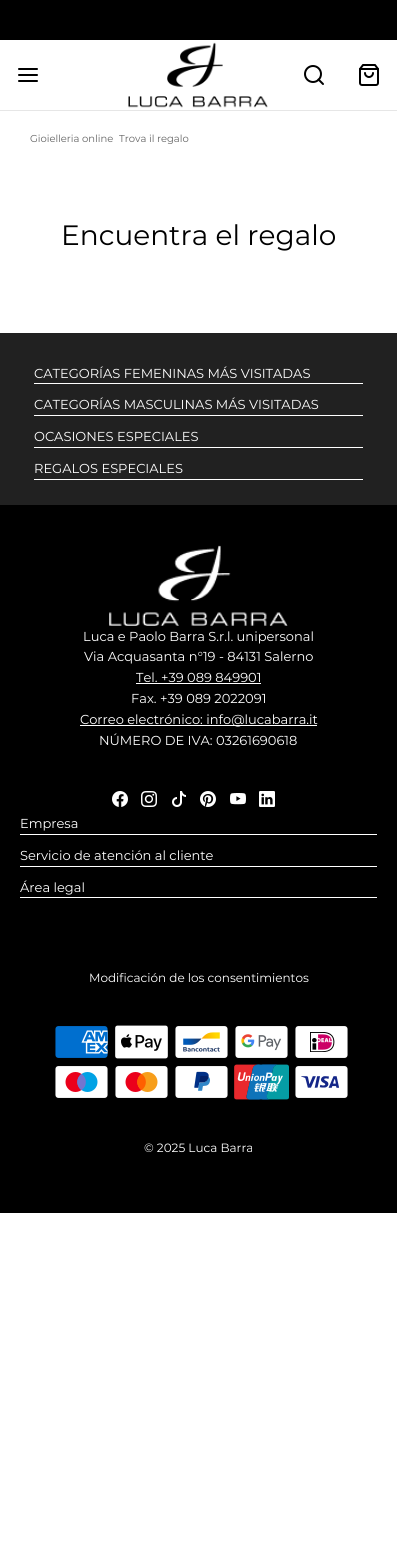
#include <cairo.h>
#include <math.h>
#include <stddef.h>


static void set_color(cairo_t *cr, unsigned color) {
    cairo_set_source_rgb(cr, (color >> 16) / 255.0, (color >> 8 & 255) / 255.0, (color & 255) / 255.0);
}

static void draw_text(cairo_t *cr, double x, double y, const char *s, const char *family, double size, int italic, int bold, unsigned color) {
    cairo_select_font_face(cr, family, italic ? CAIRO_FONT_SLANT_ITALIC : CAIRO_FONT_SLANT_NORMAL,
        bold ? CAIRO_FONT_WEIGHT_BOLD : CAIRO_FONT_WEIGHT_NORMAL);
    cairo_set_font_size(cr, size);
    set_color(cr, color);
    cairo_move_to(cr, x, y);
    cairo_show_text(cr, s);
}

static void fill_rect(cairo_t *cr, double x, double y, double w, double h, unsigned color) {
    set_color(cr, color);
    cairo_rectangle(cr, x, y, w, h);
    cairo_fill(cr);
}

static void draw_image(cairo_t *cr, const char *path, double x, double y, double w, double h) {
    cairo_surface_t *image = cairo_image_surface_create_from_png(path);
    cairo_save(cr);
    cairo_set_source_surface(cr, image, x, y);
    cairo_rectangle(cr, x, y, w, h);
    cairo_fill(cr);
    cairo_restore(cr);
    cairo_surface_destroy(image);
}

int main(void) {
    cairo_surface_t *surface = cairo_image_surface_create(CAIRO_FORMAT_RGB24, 397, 1558);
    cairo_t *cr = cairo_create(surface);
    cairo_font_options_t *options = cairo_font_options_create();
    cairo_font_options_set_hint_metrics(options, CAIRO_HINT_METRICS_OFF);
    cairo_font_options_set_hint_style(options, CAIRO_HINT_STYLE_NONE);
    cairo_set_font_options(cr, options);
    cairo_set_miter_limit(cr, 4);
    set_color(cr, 0xFFFFFF);
    cairo_paint(cr);
    fill_rect(cr, 0, 0, 397, 40, 0x000000);
    fill_rect(cr, 0, 110, 397, 1, 0xE6E6E6);
    cairo_new_path(cr);
    cairo_move_to(cr, 19, 75);
    cairo_line_to(cr, 37, 75);
    cairo_move_to(cr, 19, 69);
    cairo_line_to(cr, 37, 69);
    cairo_move_to(cr, 19, 81);
    cairo_line_to(cr, 37, 81);
    set_color(cr, 0x000000);
    cairo_set_line_cap(cr, CAIRO_LINE_CAP_ROUND);
    cairo_set_line_join(cr, CAIRO_LINE_JOIN_ROUND);
    cairo_stroke(cr);
    draw_image(cr, "assets/img1.png", 128, 42, 140, 66);
    cairo_arc(cr, 313, 74, 8, 0, 2 * M_PI);
    cairo_set_line_cap(cr, CAIRO_LINE_CAP_BUTT);
    cairo_set_line_join(cr, CAIRO_LINE_JOIN_MITER);
    cairo_stroke(cr);
    cairo_new_path(cr);
    cairo_move_to(cr, 323, 84);
    cairo_line_to(cr, 318.5, 79.5);
    cairo_set_line_cap(cr, CAIRO_LINE_CAP_ROUND);
    cairo_set_line_join(cr, CAIRO_LINE_JOIN_ROUND);
    cairo_stroke(cr);
    draw_image(cr, "assets/img2.png", 359, 64, 20, 22);
    draw_text(cr, 30, 142, "Gioielleria online", "Montserrat Thin", 10, 0, 0, 0x656565);
    draw_text(cr, 119, 142, "Trova il regalo", "Montserrat Thin", 10, 0, 0, 0x656565);
    draw_text(cr, 61, 245, "Encuentra el regalo", "Montserrat Thin", 28, 0, 0, 0x000000);
    fill_rect(cr, 0, 333, 397, 172, 0x212121);
    fill_rect(cr, 34, 383, 329, 1, 0xFFFFFF);
    draw_text(cr, 34, 378, "CATEGORÍAS FEMENINAS MÁS VISITADAS", "Montserrat Thin", 13, 0, 0, 0xFFFFFF);
    fill_rect(cr, 34, 415, 329, 1, 0xFFFFFF);
    draw_text(cr, 34, 409, "CATEGORÍAS MASCULINAS MÁS VISITADAS", "Montserrat Thin", 13, 0, 0, 0xFFFFFF);
    fill_rect(cr, 34, 447, 329, 1, 0xFFFFFF);
    draw_text(cr, 34, 441, "OCASIONES ESPECIALES", "Montserrat Thin", 13, 0, 0, 0xFFFFFF);
    fill_rect(cr, 34, 479, 329, 1, 0xFFFFFF);
    draw_text(cr, 34, 473, "REGALOS ESPECIALES", "Montserrat Thin", 13, 0, 0, 0xFFFFFF);
    fill_rect(cr, 0, 505, 397, 708, 0x000000);
    draw_image(cr, "assets/img3.png", 109, 545, 179, 81);
    draw_text(cr, 83, 641, "Luca e Paolo Barra S.r.l. unipersonal", "Montserrat Thin", 13, 0, 0, 0xFFFFFF);
    draw_text(cr, 84, 661, "Via Acquasanta n°19 - 84131 Salerno", "Montserrat Thin", 13, 0, 0, 0xFFFFFF);
    draw_text(cr, 136, 682, "Tel. +39 089 849901", "Montserrat Thin", 13, 0, 0, 0xFFFFFF);
    fill_rect(cr, 136, 683, 125, 1, 0xFFFFFF);
    draw_text(cr, 131, 703, "Fax. +39 089 2022091", "Montserrat Thin", 13, 0, 0, 0xFFFFFF);
    fill_rect(cr, 80, 725, 237, 1, 0xFFFFFF);
    draw_text(cr, 80, 724, "Correo electrónico: info@lucabarra.it", "Montserrat Thin", 13, 0, 0, 0xFFFFFF);
    draw_text(cr, 99, 745, "NÚMERO DE IVA: 03261690618", "Montserrat Thin", 13, 0, 0, 0xFFFFFF);
    draw_image(cr, "assets/img4.png", 112, 791, 16, 16);
    draw_image(cr, "assets/img5.png", 141, 791, 16, 16);
    draw_image(cr, "assets/img6.png", 172, 791, 14, 16);
    draw_image(cr, "assets/img7.png", 200, 791, 16, 16);
    draw_image(cr, "assets/img8.png", 230, 793, 16, 12);
    draw_image(cr, "assets/img9.png", 259, 791, 16, 16);
    fill_rect(cr, 20, 834, 357, 1, 0xFFFFFF);
    draw_text(cr, 20, 828, "Empresa", "Montserrat Thin", 13, 0, 0, 0xFFFFFF);
    fill_rect(cr, 20, 866, 357, 1, 0xFFFFFF);
    draw_text(cr, 20, 860, "Servicio de atención al cliente", "Montserrat Thin", 13, 0, 0, 0xFFFFFF);
    fill_rect(cr, 20, 897, 357, 1, 0xFFFFFF);
    draw_text(cr, 20, 892, "Área legal", "Montserrat Thin", 13, 0, 0, 0xFFFFFF);
    draw_text(cr, 89, 982, "Modificación de los consentimientos", "Montserrat Thin", 12, 0, 0, 0xFFFFFF);
    draw_image(cr, "assets/img10.png", 55, 1026, 53, 32);
    draw_image(cr, "assets/img11.png", 115, 1025, 53, 34);
    draw_image(cr, "assets/img12.png", 175, 1026, 53, 32);
    draw_image(cr, "assets/img13.png", 235, 1026, 53, 32);
    draw_image(cr, "assets/img14.png", 295, 1026, 53, 32);
    draw_image(cr, "assets/img15.png", 55, 1066, 53, 32);
    draw_image(cr, "assets/img16.png", 115, 1066, 53, 32);
    draw_image(cr, "assets/img17.png", 175, 1066, 53, 32);
    draw_image(cr, "assets/img18.png", 234, 1064, 55, 36);
    draw_image(cr, "assets/img19.png", 295, 1066, 53, 32);
    draw_text(cr, 144, 1152, "© 2025 Luca Barra", "Montserrat Thin", 12, 0, 0, 0xFFFFFF);
    cairo_surface_write_to_png(surface, "output.png");
    cairo_font_options_destroy(options);
    cairo_destroy(cr);
    cairo_surface_destroy(surface);
    return 0;
}
